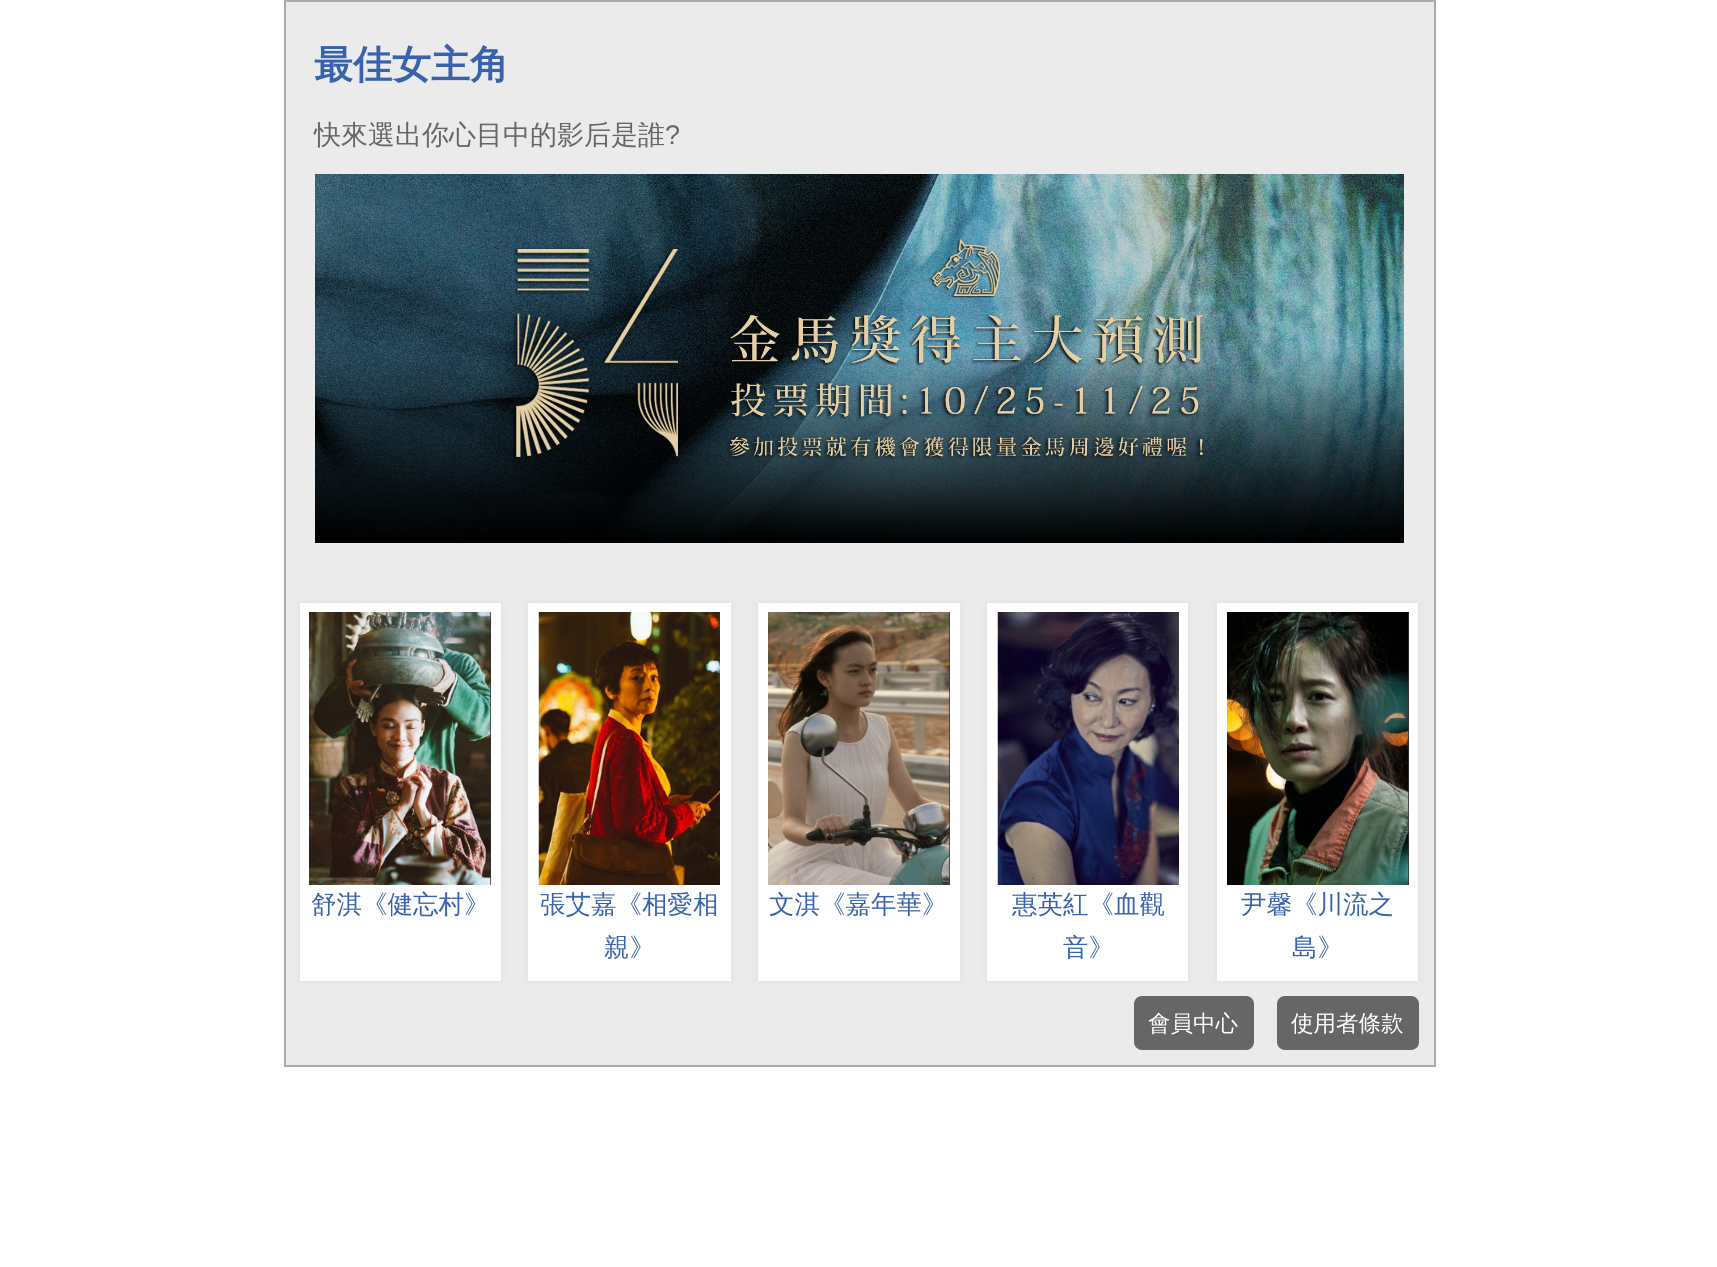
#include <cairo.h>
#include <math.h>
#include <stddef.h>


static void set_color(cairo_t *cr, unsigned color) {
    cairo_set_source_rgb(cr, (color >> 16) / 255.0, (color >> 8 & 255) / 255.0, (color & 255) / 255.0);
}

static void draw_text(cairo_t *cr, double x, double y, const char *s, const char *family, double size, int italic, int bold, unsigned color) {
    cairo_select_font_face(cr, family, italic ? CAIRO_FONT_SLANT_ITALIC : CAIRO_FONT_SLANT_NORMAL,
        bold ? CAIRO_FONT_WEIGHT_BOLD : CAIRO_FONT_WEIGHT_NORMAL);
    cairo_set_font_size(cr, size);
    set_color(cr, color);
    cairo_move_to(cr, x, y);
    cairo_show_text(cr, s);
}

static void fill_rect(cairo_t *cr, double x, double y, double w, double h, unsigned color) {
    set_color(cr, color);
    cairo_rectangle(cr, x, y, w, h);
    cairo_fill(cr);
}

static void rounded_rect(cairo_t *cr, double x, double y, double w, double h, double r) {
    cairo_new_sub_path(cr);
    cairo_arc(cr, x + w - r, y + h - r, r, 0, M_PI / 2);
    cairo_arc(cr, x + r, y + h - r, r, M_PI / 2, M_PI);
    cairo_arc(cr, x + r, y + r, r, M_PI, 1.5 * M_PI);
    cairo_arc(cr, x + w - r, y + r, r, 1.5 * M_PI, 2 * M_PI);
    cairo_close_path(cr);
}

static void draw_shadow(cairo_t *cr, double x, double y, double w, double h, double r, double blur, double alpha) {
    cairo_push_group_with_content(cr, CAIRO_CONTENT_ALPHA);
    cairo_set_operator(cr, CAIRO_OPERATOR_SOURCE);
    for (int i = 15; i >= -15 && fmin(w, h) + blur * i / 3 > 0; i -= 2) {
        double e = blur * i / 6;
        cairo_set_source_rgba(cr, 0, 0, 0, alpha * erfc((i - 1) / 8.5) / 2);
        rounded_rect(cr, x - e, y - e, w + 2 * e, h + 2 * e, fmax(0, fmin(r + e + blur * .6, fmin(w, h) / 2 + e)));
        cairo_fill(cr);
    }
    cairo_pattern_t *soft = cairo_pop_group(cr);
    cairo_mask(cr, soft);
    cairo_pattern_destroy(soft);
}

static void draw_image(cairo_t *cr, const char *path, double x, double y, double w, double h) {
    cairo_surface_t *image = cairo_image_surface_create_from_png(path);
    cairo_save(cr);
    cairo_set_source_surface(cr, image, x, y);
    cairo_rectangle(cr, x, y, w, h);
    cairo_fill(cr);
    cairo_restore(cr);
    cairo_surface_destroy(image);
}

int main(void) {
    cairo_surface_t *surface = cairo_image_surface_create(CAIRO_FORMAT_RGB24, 1717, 1267);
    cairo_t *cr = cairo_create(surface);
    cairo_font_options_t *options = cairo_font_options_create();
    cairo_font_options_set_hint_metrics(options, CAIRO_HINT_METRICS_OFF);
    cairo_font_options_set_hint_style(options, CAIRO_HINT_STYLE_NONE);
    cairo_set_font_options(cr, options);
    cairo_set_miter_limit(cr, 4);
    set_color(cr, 0xFFFFFF);
    cairo_paint(cr);
    set_color(cr, 0xEBEBEB);
    cairo_rectangle(cr, 285, 1, 1150, 1065);
    cairo_fill_preserve(cr);
    set_color(cr, 0xAAAAAA);
    cairo_stroke(cr);
    draw_text(cr, 314, 78, "最佳女主角", "WenQuanYi Zen Hei", 39, 0, 1, 0x3863AB);
    draw_text(cr, 314, 144, "快來選出你心目中的影后是誰", "WenQuanYi Zen Hei Medium", 27, 0, 0, 0x666666);
    draw_text(cr, 665, 144, "?", "Liberation Sans", 27, 0, 0, 0x666666);
    draw_image(cr, "assets/img1.png", 315, 174, 1089, 369);
    set_color(cr, 0xDDDDDD);
    draw_shadow(cr, 300, 603, 201, 378, 0, 4, 1);
    fill_rect(cr, 300, 603, 201, 378, 0xFFFFFF);
    fill_rect(cr, 490, 612, 1, 273, 0x333333);
    draw_image(cr, "assets/img2.png", 309, 612, 182, 273);
    draw_text(cr, 311, 913, "舒淇《健忘村》", "WenQuanYi Zen Hei Medium", 25.5, 0, 0, 0x3863AB);
    set_color(cr, 0xDDDDDD);
    draw_shadow(cr, 528, 603, 203, 378, 0, 4, 1);
    fill_rect(cr, 528, 603, 203, 378, 0xFFFFFF);
    draw_image(cr, "assets/img3.png", 538, 612, 182, 273);
    draw_text(cr, 540, 913, "張艾嘉《相愛相", "WenQuanYi Zen Hei Medium", 25.5, 0, 0, 0x3863AB);
    draw_text(cr, 604, 956, "親》", "WenQuanYi Zen Hei Medium", 25.5, 0, 0, 0x3863AB);
    set_color(cr, 0xDDDDDD);
    draw_shadow(cr, 758, 603, 202, 378, 0, 4, 1);
    fill_rect(cr, 758, 603, 202, 378, 0xFFFFFF);
    fill_rect(cr, 949, 612, 1, 273, 0x333333);
    draw_image(cr, "assets/img4.png", 768, 612, 182, 273);
    draw_text(cr, 769, 913, "文淇《嘉年華》", "WenQuanYi Zen Hei Medium", 25.5, 0, 0, 0x3863AB);
    set_color(cr, 0xDDDDDD);
    draw_shadow(cr, 987, 603, 201, 378, 0, 4, 1);
    fill_rect(cr, 987, 603, 201, 378, 0xFFFFFF);
    draw_image(cr, "assets/img5.png", 997, 612, 182, 273);
    draw_text(cr, 1012, 913, "惠英紅《血觀", "WenQuanYi Zen Hei Medium", 25.5, 0, 0, 0x3863AB);
    draw_text(cr, 1063, 956, "音》", "WenQuanYi Zen Hei Medium", 25.5, 0, 0, 0x3863AB);
    set_color(cr, 0xDDDDDD);
    draw_shadow(cr, 1217, 603, 201, 378, 0, 4, 1);
    fill_rect(cr, 1217, 603, 201, 378, 0xFFFFFF);
    fill_rect(cr, 1408, 612, 1, 273, 0x333333);
    draw_image(cr, "assets/img6.png", 1227, 612, 182, 273);
    draw_text(cr, 1241, 913, "尹馨《川流之", "WenQuanYi Zen Hei Medium", 25.5, 0, 0, 0x3863AB);
    draw_text(cr, 1292, 956, "島》", "WenQuanYi Zen Hei Medium", 25.5, 0, 0, 0x3863AB);
    set_color(cr, 0x666666);
    rounded_rect(cr, 1134, 996, 120, 54, 8);
    cairo_fill(cr);
    draw_text(cr, 1148, 1031, "會員中心", "WenQuanYi Zen Hei Medium", 22.5, 0, 0, 0xFFFFFF);
    set_color(cr, 0x666666);
    rounded_rect(cr, 1277, 996, 142, 54, 8);
    cairo_fill(cr);
    draw_text(cr, 1291, 1031, "使用者條款", "WenQuanYi Zen Hei Medium", 22.5, 0, 0, 0xFFFFFF);
    cairo_surface_write_to_png(surface, "output.png");
    cairo_font_options_destroy(options);
    cairo_destroy(cr);
    cairo_surface_destroy(surface);
    return 0;
}
